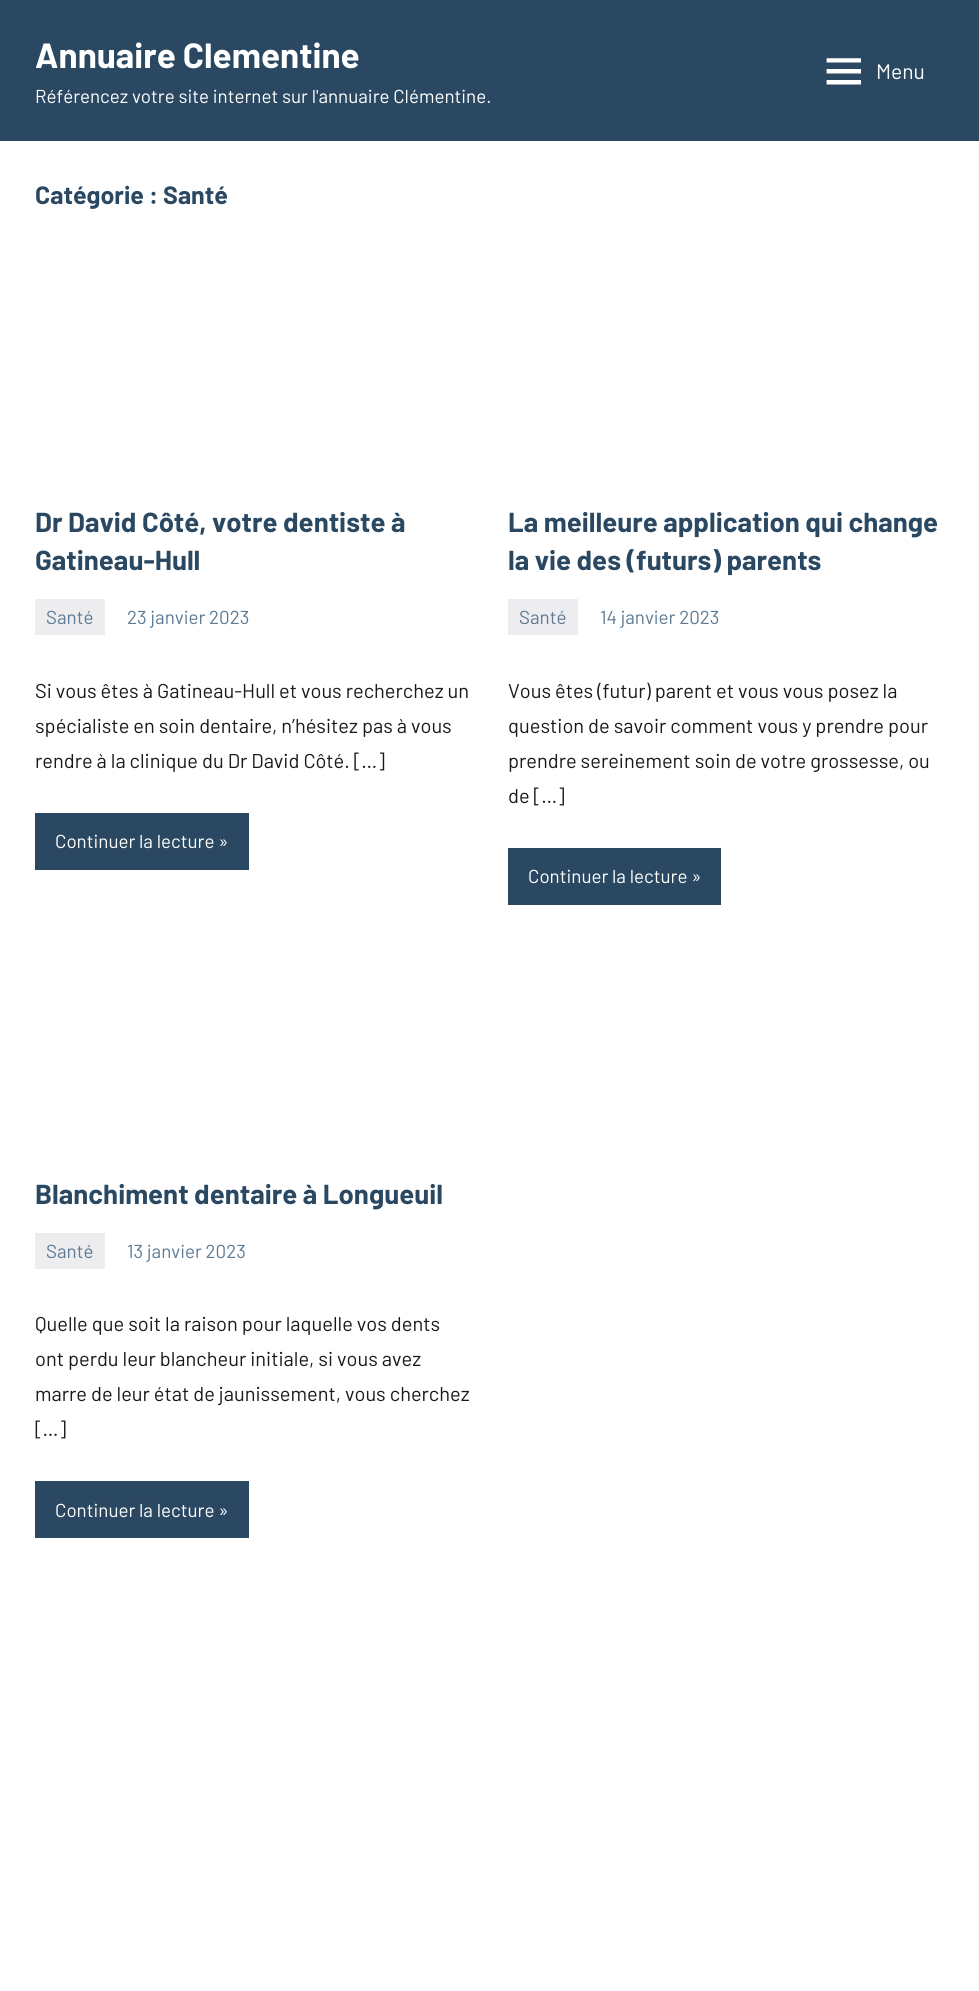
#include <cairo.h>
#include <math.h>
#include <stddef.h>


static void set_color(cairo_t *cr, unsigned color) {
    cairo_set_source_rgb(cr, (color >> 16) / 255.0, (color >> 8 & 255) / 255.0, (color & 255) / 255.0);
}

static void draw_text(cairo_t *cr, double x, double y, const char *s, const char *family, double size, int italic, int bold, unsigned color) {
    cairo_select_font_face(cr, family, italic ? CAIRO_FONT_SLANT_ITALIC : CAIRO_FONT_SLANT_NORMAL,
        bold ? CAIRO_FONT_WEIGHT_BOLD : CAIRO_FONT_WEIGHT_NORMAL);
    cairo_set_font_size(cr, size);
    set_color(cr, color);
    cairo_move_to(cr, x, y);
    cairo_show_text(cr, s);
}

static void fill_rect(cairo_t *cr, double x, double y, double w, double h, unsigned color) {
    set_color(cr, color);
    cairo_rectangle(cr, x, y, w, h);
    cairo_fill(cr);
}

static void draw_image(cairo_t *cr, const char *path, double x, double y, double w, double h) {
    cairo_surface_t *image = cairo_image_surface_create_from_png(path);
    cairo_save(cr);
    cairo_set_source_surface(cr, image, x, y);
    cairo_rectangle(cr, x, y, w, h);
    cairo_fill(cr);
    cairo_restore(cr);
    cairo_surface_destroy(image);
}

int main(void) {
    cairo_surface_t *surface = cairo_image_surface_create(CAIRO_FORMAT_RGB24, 979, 1991);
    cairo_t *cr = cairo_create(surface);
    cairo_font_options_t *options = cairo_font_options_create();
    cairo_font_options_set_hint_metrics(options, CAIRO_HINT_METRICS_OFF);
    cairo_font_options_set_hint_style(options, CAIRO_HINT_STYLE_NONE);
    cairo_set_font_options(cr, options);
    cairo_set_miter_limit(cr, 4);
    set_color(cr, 0x2A4861);
    cairo_paint(cr);
    draw_text(cr, 35, 68, "Annuaire Clementine", "Barlow", 35, 0, 1, 0xFFFFFF);
    draw_text(cr, 35, 103, "Référencez votre site internet sur l'annuaire Clémentine.", "Barlow", 18.75, 0, 0, 0xFFFFFF);
    draw_image(cr, "assets/img1.png", 826, 58, 35, 27);
    draw_text(cr, 876, 79, "Menu", "Barlow", 21, 0, 0, 0xFFFFFF);
    fill_rect(cr, 0, 141, 979, 1850, 0xFFFFFF);
    draw_text(cr, 35, 204, "Catégorie : Santé", "Barlow", 25, 0, 1, 0x2A4861);
    draw_text(cr, 35, 532, "Dr David Côté, votre dentiste à", "Barlow", 27.5, 0, 1, 0x2A4861);
    draw_text(cr, 35, 570, "Gatineau-Hull", "Barlow", 27.5, 0, 1, 0x2A4861);
    fill_rect(cr, 35, 599, 70, 36, 0xEDEDEF);
    draw_text(cr, 46, 624, "Santé", "Barlow", 18.75, 0, 0, 0x5D7B94);
    draw_text(cr, 127, 624, "23 janvier 2023", "Barlow", 18.75, 0, 0, 0x5D7B94);
    draw_text(cr, 35, 698, "Si vous êtes à Gatineau-Hull et vous recherchez un", "Barlow", 20, 0, 0, 0x1A1A1A);
    draw_text(cr, 35, 733, "spécialiste en soin dentaire, n’hésitez pas à vous", "Barlow", 20, 0, 0, 0x1A1A1A);
    draw_text(cr, 35, 768, "rendre à la clinique du Dr David Côté. […]", "Barlow", 20, 0, 0, 0x1A1A1A);
    fill_rect(cr, 35, 813, 214, 57, 0x2A4861);
    draw_text(cr, 55, 848, "Continuer la lecture »", "Barlow", 18.75, 0, 0, 0xFFFFFF);
    draw_text(cr, 508, 532, "La meilleure application qui change", "Barlow", 27.5, 0, 1, 0x2A4861);
    draw_text(cr, 508, 570, "la vie des (futurs) parents", "Barlow", 27.5, 0, 1, 0x2A4861);
    fill_rect(cr, 508, 599, 70, 36, 0xEDEDEF);
    draw_text(cr, 519, 624, "Santé", "Barlow", 18.75, 0, 0, 0x5D7B94);
    draw_text(cr, 600, 624, "14 janvier 2023", "Barlow", 18.75, 0, 0, 0x5D7B94);
    draw_text(cr, 508, 698, "Vous êtes (futur) parent et vous vous posez la", "Barlow", 20, 0, 0, 0x1A1A1A);
    draw_text(cr, 508, 733, "question de savoir comment vous y prendre pour", "Barlow", 20, 0, 0, 0x1A1A1A);
    draw_text(cr, 508, 768, "prendre sereinement soin de votre grossesse, ou", "Barlow", 20, 0, 0, 0x1A1A1A);
    draw_text(cr, 508, 803, "de […]", "Barlow", 20, 0, 0, 0x1A1A1A);
    fill_rect(cr, 508, 848, 213, 57, 0x2A4861);
    draw_text(cr, 528, 883, "Continuer la lecture »", "Barlow", 18.75, 0, 0, 0xFFFFFF);
    draw_text(cr, 35, 1204, "Blanchiment dentaire à Longueuil", "Barlow", 27.5, 0, 1, 0x2A4861);
    fill_rect(cr, 35, 1233, 70, 36, 0xEDEDEF);
    draw_text(cr, 46, 1258, "Santé", "Barlow", 18.75, 0, 0, 0x5D7B94);
    draw_text(cr, 127, 1258, "13 janvier 2023", "Barlow", 18.75, 0, 0, 0x5D7B94);
    draw_text(cr, 35, 1331, "Quelle que soit la raison pour laquelle vos dents", "Barlow", 20, 0, 0, 0x1A1A1A);
    draw_text(cr, 35, 1366, "ont perdu leur blancheur initiale, si vous avez", "Barlow", 20, 0, 0, 0x1A1A1A);
    draw_text(cr, 35, 1401, "marre de leur état de jaunissement, vous cherchez", "Barlow", 20, 0, 0, 0x1A1A1A);
    draw_text(cr, 35, 1436, "[…]", "Barlow", 20, 0, 0, 0x1A1A1A);
    fill_rect(cr, 35, 1481, 214, 57, 0x2A4861);
    draw_text(cr, 55, 1517, "Continuer la lecture »", "Barlow", 18.75, 0, 0, 0xFFFFFF);
    cairo_surface_write_to_png(surface, "output.png");
    cairo_font_options_destroy(options);
    cairo_destroy(cr);
    cairo_surface_destroy(surface);
    return 0;
}
